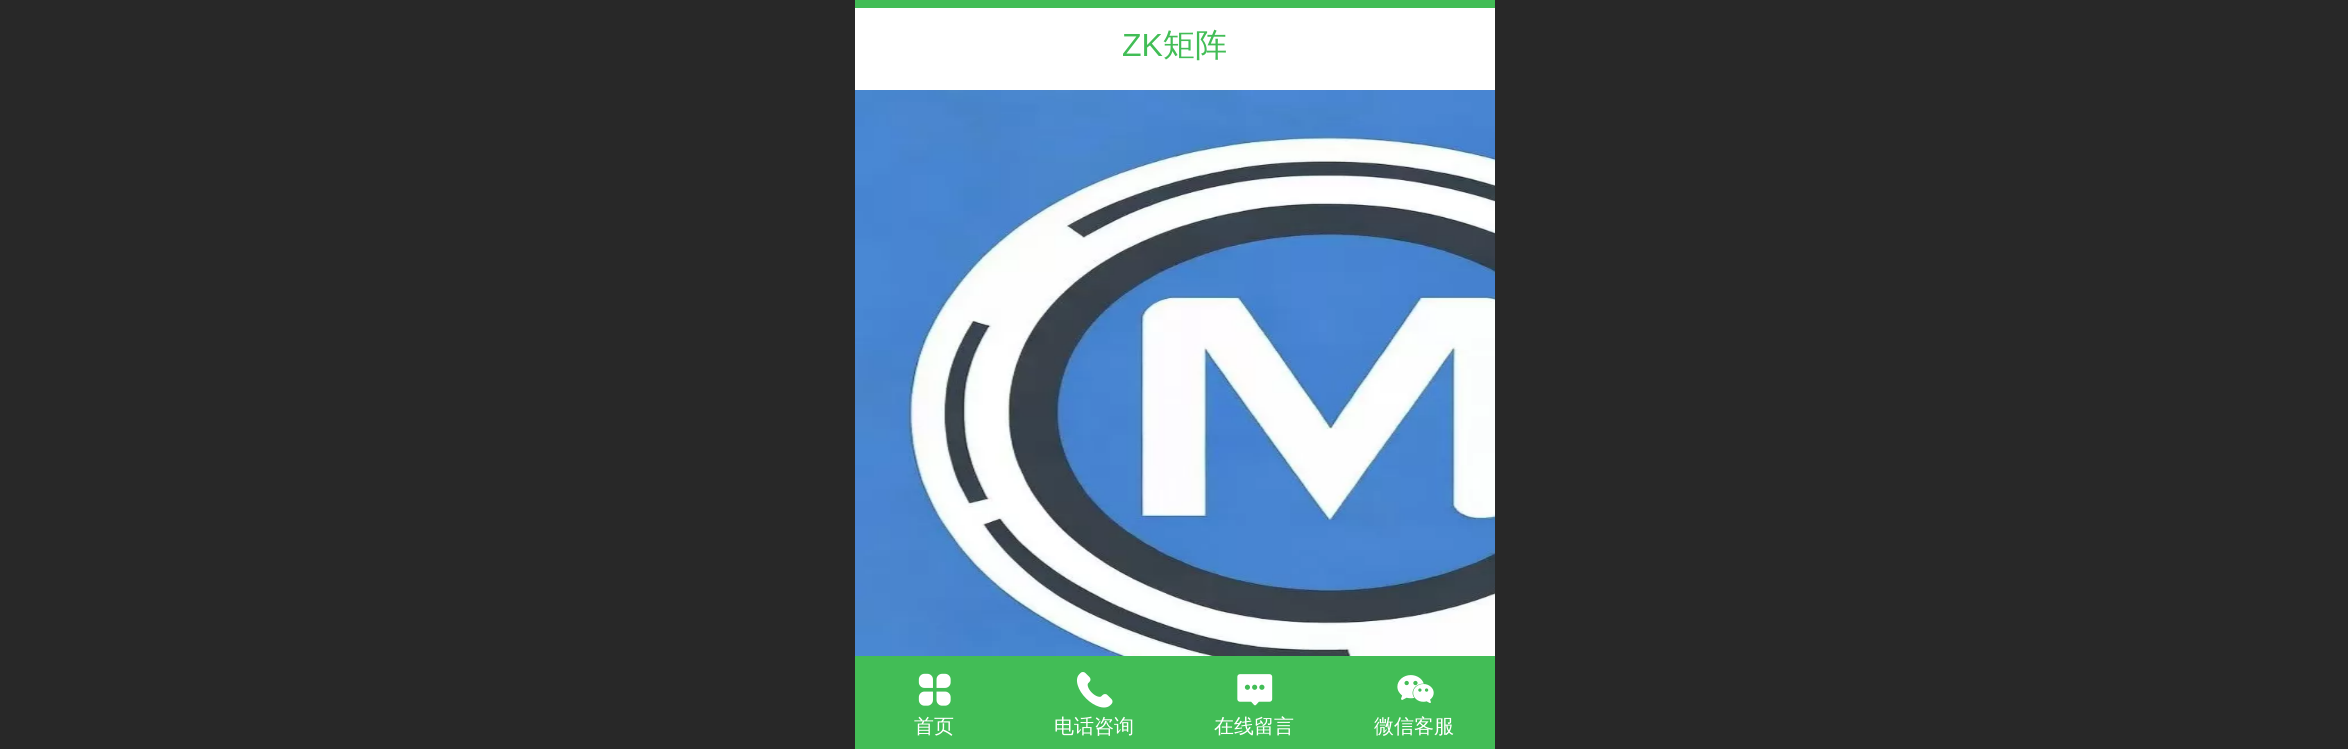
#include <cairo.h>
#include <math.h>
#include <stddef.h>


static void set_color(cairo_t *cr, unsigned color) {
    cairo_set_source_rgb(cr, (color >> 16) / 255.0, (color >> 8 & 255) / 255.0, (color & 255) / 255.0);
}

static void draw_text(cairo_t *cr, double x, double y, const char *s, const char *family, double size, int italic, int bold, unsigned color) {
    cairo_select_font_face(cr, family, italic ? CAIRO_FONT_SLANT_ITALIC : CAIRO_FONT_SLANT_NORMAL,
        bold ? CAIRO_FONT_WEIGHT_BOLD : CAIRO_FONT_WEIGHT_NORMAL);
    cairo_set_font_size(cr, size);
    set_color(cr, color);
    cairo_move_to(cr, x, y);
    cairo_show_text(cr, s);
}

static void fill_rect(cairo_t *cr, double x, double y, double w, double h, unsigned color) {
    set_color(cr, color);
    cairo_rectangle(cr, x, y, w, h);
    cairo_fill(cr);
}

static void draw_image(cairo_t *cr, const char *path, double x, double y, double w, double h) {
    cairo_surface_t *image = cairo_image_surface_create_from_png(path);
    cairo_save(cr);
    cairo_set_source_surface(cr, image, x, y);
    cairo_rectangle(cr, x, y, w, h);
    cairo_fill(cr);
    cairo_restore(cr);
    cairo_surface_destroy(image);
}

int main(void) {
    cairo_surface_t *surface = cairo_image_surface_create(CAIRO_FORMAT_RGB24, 2348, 749);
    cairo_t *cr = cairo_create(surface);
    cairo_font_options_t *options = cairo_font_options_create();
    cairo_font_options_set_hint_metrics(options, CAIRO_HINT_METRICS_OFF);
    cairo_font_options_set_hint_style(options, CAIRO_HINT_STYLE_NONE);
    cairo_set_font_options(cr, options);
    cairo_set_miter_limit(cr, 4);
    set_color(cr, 0xFFFFFF);
    cairo_paint(cr);
    fill_rect(cr, 0, 0, 855, 749, 0x282828);
    fill_rect(cr, 855, 0, 640, 8, 0x42BD56);
    draw_text(cr, 1122, 56, "ZK", "Liberation Sans", 32, 0, 0, 0x42BD56);
    draw_text(cr, 1163, 56, "矩阵", "WenQuanYi Zen Hei Medium", 32, 0, 0, 0x42BD56);
    draw_image(cr, "assets/img1.png", 855, 90, 640, 566);
    fill_rect(cr, 855, 656, 640, 93, 0x42BD56);
    draw_image(cr, "assets/img2.png", 918, 673, 33, 33);
    draw_text(cr, 914, 733, "首页", "WenQuanYi Zen Hei Medium", 20, 0, 0, 0xFFFFFF);
    draw_image(cr, "assets/img3.png", 1076, 672, 37, 36);
    draw_text(cr, 1054, 733, "电话咨询", "WenQuanYi Zen Hei Medium", 20, 0, 0, 0xFFFFFF);
    draw_image(cr, "assets/img4.png", 1237, 674, 36, 32);
    draw_text(cr, 1214, 733, "在线留言", "WenQuanYi Zen Hei Medium", 20, 0, 0, 0xFFFFFF);
    draw_image(cr, "assets/img5.png", 1397, 675, 37, 28);
    draw_text(cr, 1374, 733, "微信客服", "WenQuanYi Zen Hei Medium", 20, 0, 0, 0xFFFFFF);
    fill_rect(cr, 1495, 0, 853, 749, 0x282828);
    cairo_surface_write_to_png(surface, "output.png");
    cairo_font_options_destroy(options);
    cairo_destroy(cr);
    cairo_surface_destroy(surface);
    return 0;
}
